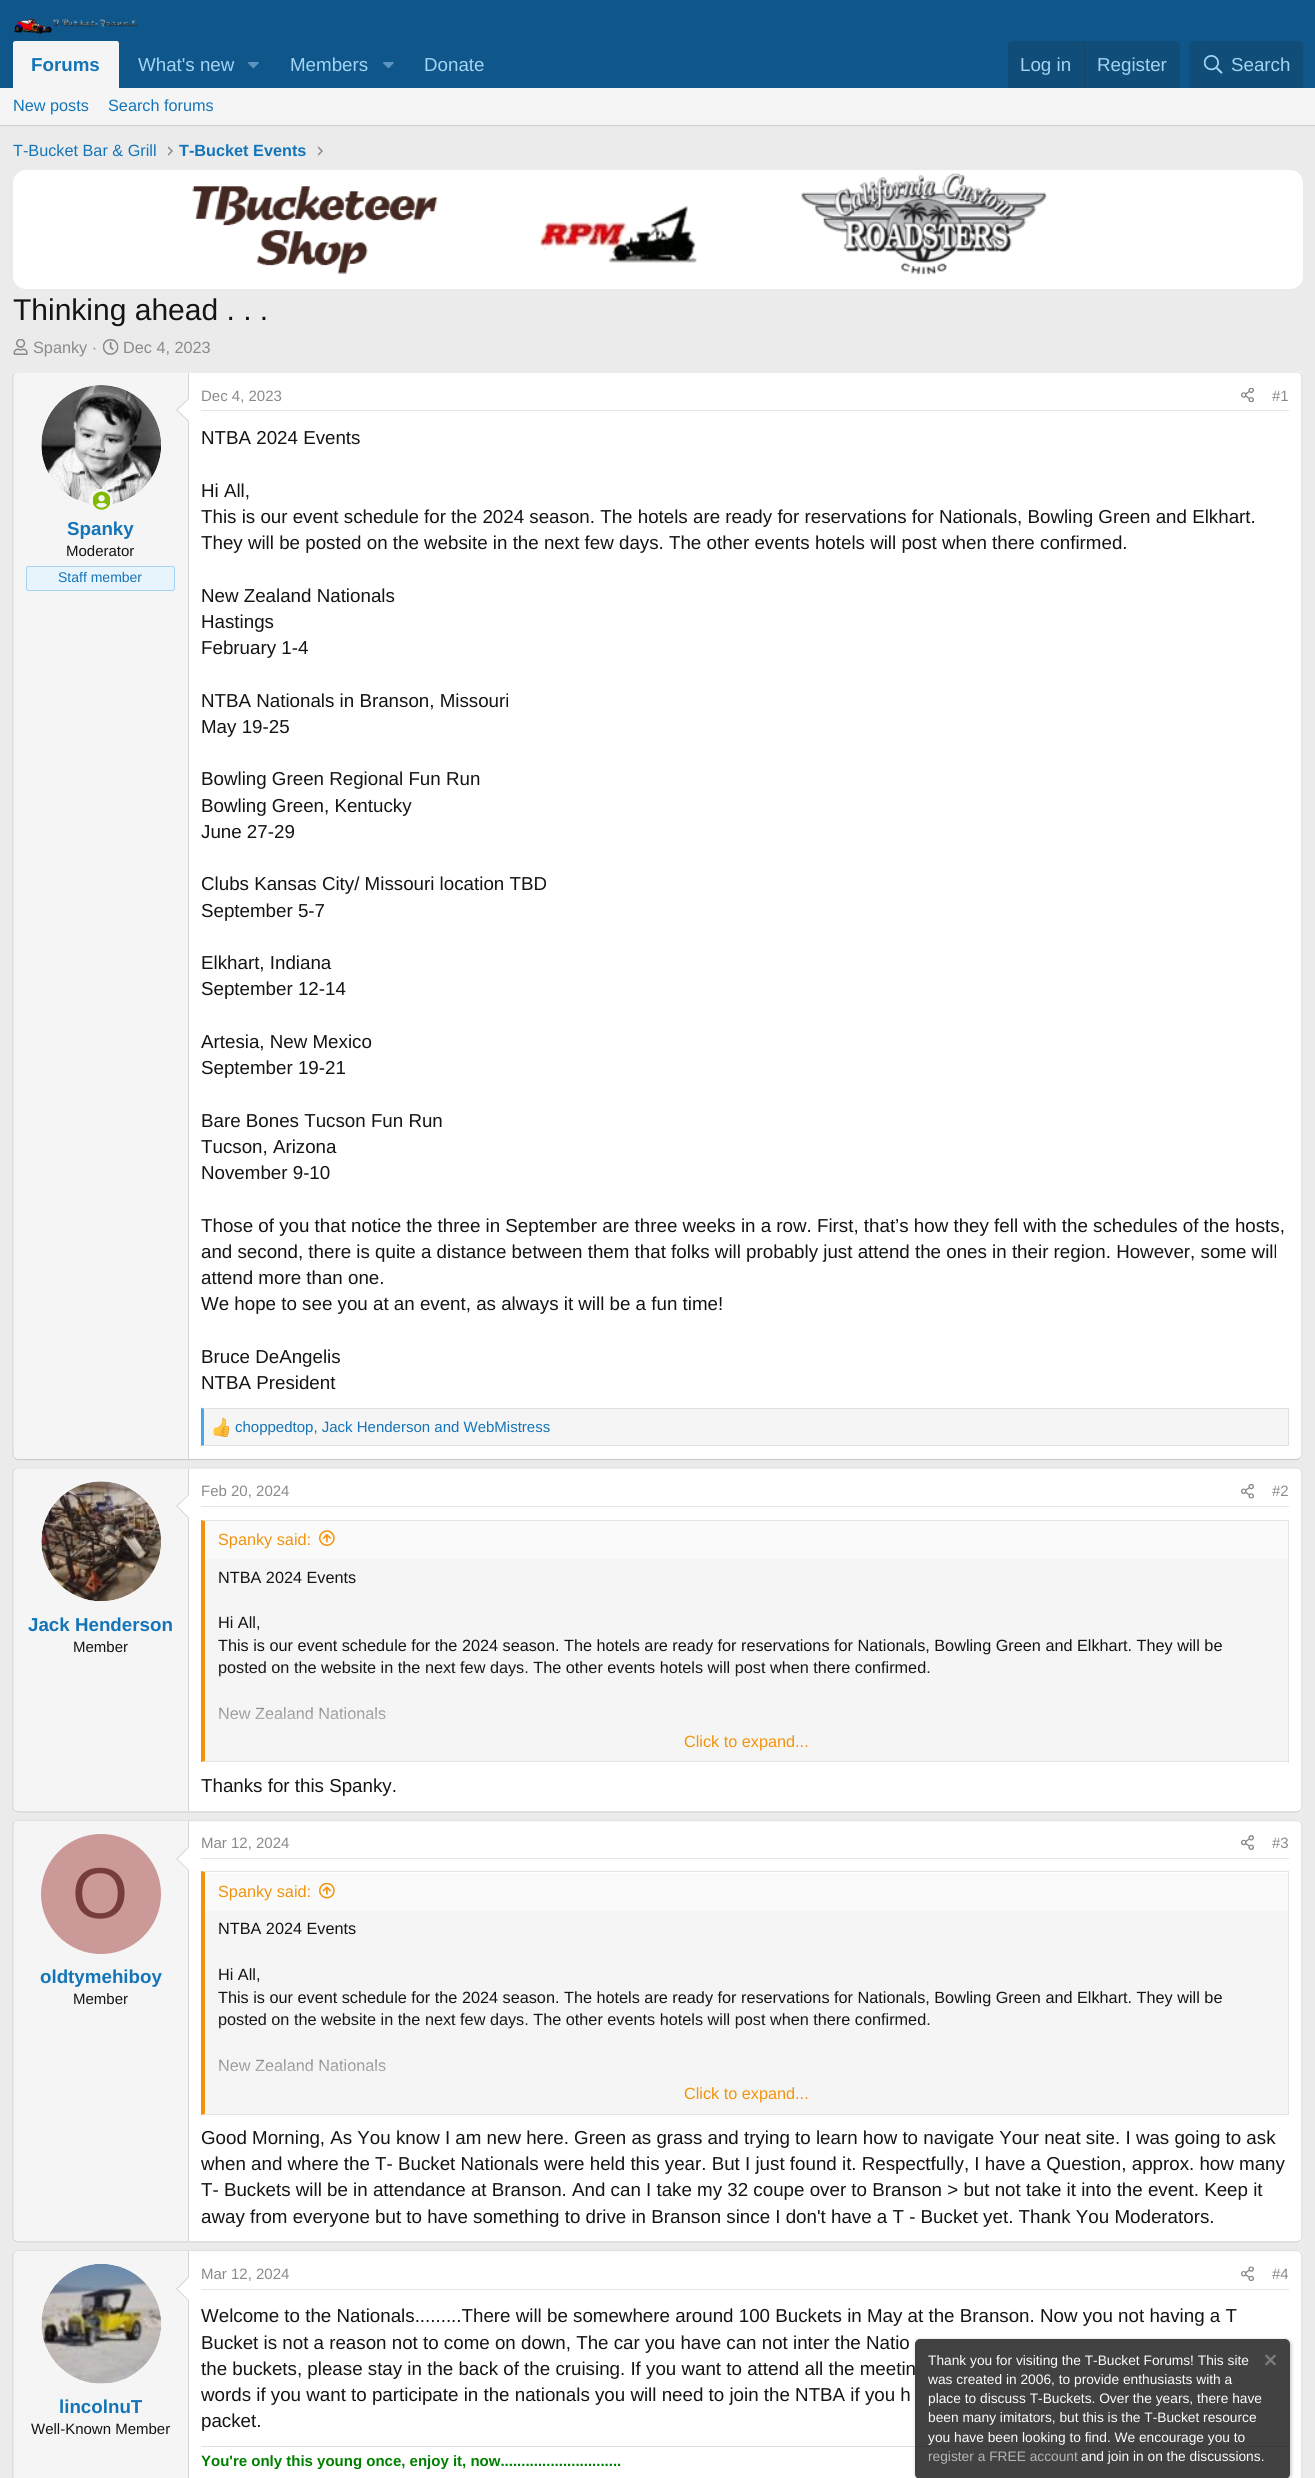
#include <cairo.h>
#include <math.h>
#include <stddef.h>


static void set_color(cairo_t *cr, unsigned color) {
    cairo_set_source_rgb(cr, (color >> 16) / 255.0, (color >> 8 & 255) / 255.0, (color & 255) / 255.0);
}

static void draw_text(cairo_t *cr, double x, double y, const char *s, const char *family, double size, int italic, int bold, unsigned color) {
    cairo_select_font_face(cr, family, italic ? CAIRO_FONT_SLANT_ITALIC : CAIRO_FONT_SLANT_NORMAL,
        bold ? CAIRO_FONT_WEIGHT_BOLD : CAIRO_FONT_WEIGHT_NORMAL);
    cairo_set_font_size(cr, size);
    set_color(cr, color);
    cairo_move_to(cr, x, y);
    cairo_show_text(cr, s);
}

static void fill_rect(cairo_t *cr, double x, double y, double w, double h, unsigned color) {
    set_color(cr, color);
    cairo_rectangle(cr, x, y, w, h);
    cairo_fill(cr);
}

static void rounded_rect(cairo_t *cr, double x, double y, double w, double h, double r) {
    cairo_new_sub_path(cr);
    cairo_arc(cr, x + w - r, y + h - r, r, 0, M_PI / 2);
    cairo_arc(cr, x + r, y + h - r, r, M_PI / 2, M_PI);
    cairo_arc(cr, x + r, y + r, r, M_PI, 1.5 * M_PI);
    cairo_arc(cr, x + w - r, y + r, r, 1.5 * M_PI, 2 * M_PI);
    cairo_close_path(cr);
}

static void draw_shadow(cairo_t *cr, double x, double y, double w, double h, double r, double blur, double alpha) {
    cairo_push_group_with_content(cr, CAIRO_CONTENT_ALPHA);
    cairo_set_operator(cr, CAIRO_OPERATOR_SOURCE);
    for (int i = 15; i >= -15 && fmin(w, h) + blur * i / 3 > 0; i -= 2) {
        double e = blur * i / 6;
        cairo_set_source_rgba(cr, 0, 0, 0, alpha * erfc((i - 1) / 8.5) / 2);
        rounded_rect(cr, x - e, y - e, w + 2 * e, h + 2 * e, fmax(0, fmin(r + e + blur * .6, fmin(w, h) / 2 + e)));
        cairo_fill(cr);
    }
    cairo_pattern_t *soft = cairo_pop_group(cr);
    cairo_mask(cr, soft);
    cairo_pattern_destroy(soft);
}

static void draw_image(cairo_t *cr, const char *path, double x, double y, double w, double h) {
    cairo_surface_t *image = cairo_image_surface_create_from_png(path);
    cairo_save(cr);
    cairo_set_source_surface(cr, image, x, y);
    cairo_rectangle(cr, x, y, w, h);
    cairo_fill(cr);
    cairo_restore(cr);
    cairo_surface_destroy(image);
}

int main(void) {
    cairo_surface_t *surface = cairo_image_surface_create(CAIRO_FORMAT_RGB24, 1315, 2478);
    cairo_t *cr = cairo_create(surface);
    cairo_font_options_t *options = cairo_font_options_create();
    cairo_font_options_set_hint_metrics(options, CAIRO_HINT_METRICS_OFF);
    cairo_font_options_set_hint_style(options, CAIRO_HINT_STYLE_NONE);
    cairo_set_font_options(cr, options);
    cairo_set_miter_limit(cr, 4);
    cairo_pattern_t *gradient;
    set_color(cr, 0xEBEBEB);
    cairo_paint(cr);
    fill_rect(cr, 0, 0, 1315, 88, 0x0F578A);
    draw_image(cr, "assets/img1.png", 13, 19, 125, 15);
    set_color(cr, 0xF5F5F5);
    cairo_new_path(cr);
    cairo_move_to(cr, 15.5, 41);
    cairo_line_to(cr, 116.5, 41);
    cairo_curve_to(cr, 118, 41, 119, 42, 119, 43.5);
    cairo_line_to(cr, 119, 88);
    cairo_line_to(cr, 13, 88);
    cairo_line_to(cr, 13, 43.5);
    cairo_curve_to(cr, 13, 42, 14, 41, 15.5, 41);
    cairo_close_path(cr);
    cairo_fill(cr);
    draw_text(cr, 31, 71, "Forums", "Liberation Sans", 18.75, 0, 1, 0x1474B8);
    draw_text(cr, 138, 71, "What's new", "Liberation Sans", 18.75, 0, 0, 0xA3D4F5);
    draw_image(cr, "assets/img2.png", 248, 62, 11, 7);
    draw_text(cr, 290, 71, "Members", "Liberation Sans", 18.75, 0, 0, 0xA3D4F5);
    draw_image(cr, "assets/img2.png", 383, 62, 11, 7);
    draw_text(cr, 424, 71, "Donate", "Liberation Sans", 18.75, 0, 0, 0xA3D4F5);
    set_color(cr, 0x104D78);
    cairo_new_path(cr);
    cairo_move_to(cr, 1013, 41);
    cairo_line_to(cr, 1175, 41);
    cairo_curve_to(cr, 1178, 41, 1180, 43, 1180, 46);
    cairo_line_to(cr, 1180, 88);
    cairo_line_to(cr, 1008, 88);
    cairo_line_to(cr, 1008, 46);
    cairo_curve_to(cr, 1008, 43, 1010, 41, 1013, 41);
    cairo_close_path(cr);
    cairo_fill(cr);
    draw_text(cr, 1020, 71, "Log in", "Liberation Sans", 18.75, 0, 0, 0xA3D4F5);
    fill_rect(cr, 1084, 41, 1, 47, 0x114469);
    draw_text(cr, 1097, 71, "Register", "Liberation Sans", 18.75, 0, 0, 0xA3D4F5);
    set_color(cr, 0x104D78);
    cairo_new_path(cr);
    cairo_move_to(cr, 1194, 41);
    cairo_line_to(cr, 1298, 41);
    cairo_curve_to(cr, 1301, 41, 1303, 43, 1303, 46);
    cairo_line_to(cr, 1303, 88);
    cairo_line_to(cr, 1189, 88);
    cairo_line_to(cr, 1189, 46);
    cairo_curve_to(cr, 1189, 43, 1191, 41, 1194, 41);
    cairo_close_path(cr);
    cairo_fill(cr);
    draw_image(cr, "assets/img3.png", 1204, 55, 19, 19);
    draw_text(cr, 1231, 71, "Search", "Liberation Sans", 18.75, 0, 0, 0xA3D4F5);
    fill_rect(cr, 0, 88, 1315, 37, 0xF5F5F5);
    fill_rect(cr, 0, 125, 1315, 1, 0xCCCCCC);
    draw_text(cr, 13, 111, "New posts", "Liberation Sans", 16.25, 0, 0, 0x1474B8);
    draw_text(cr, 108, 111, "Search forums", "Liberation Sans", 16.25, 0, 0, 0x1474B8);
    draw_text(cr, 13, 156, "T-Bucket Bar & Grill", "Liberation Sans", 16.25, 0, 0, 0x1474B8);
    draw_image(cr, "assets/img4.png", 168, 146, 5, 10);
    draw_text(cr, 179, 156, "T-Bucket Events", "Liberation Sans", 16.25, 0, 1, 0x1474B8);
    draw_image(cr, "assets/img4.png", 318, 146, 5, 10);
    set_color(cr, 0xFFFFFF);
    rounded_rect(cr, 13, 170, 1290, 119, 13);
    cairo_fill(cr);
    draw_image(cr, "assets/img5.png", 192, 186, 246, 88);
    draw_image(cr, "assets/img6.png", 540, 206, 157, 57);
    draw_image(cr, "assets/img7.png", 801, 173, 246, 102);
    draw_text(cr, 13, 320, "Thinking ahead . . .", "Liberation Sans", 30, 0, 0, 0x141414);
    draw_image(cr, "assets/img8.png", 13, 339, 15, 16);
    draw_text(cr, 33, 353, "Spanky ·", "Liberation Sans", 16.25, 0, 0, 0x8A8A8A);
    draw_image(cr, "assets/img9.png", 102, 339, 17, 16);
    draw_text(cr, 123, 353, "Dec 4, 2023", "Liberation Sans", 16.25, 0, 0, 0x8A8A8A);
    set_color(cr, 0xFFFFFF);
    rounded_rect(cr, 13, 371, 1290, 1089, 5);
    cairo_fill(cr);
    cairo_new_path(cr);
    cairo_move_to(cr, 14.5, 373);
    cairo_line_to(cr, 17.5, 372);
    cairo_line_to(cr, 1297.5, 372);
    cairo_line_to(cr, 1300.5, 373);
    set_color(cr, 0xE0E0E0);
    cairo_set_line_width(cr, 1.2);
    cairo_stroke(cr);
    cairo_new_path(cr);
    cairo_move_to(cr, 1300.5, 373);
    cairo_line_to(cr, 1302, 376);
    cairo_line_to(cr, 1302, 1455);
    cairo_line_to(cr, 1300.5, 1458);
    set_color(cr, 0xD6D6D6);
    cairo_stroke(cr);
    cairo_new_path(cr);
    cairo_move_to(cr, 1300.5, 1458);
    cairo_line_to(cr, 1297.5, 1459.5);
    cairo_line_to(cr, 17.5, 1459.5);
    cairo_line_to(cr, 14.5, 1458);
    set_color(cr, 0xCCCCCC);
    cairo_stroke(cr);
    cairo_new_path(cr);
    cairo_move_to(cr, 14.5, 1458);
    cairo_line_to(cr, 13, 1455);
    cairo_line_to(cr, 13, 376);
    cairo_line_to(cr, 14.5, 373);
    set_color(cr, 0xD6D6D6);
    cairo_stroke(cr);
    set_color(cr, 0xF5F5F5);
    cairo_new_path(cr);
    cairo_move_to(cr, 18, 373);
    cairo_line_to(cr, 189, 373);
    cairo_line_to(cr, 189, 1459);
    cairo_line_to(cr, 18, 1459);
    cairo_curve_to(cr, 16, 1459, 14, 1457, 14, 1455);
    cairo_line_to(cr, 14, 377);
    cairo_curve_to(cr, 14, 375, 16, 373, 18, 373);
    cairo_close_path(cr);
    cairo_fill(cr);
    fill_rect(cr, 188, 373, 1, 1086, 0xD6D6D6);
    set_color(cr, 0xFFFFFF);
    cairo_arc(cr, 101, 445, 60, 0, 2 * M_PI);
    cairo_fill(cr);
    draw_image(cr, "assets/img10.png", 41, 385, 120, 119);
    set_color(cr, 0xF5F5F5);
    cairo_arc(cr, 101, 501, 12, 0, 2 * M_PI);
    cairo_fill(cr);
    draw_image(cr, "assets/img11.png", 93, 491, 17, 19);
    set_color(cr, 0xD6D6D6);
    cairo_new_path(cr);
    cairo_move_to(cr, 189, 397.5);
    cairo_line_to(cr, 189, 422.5);
    cairo_line_to(cr, 176, 410);
    cairo_close_path(cr);
    cairo_fill(cr);
    set_color(cr, 0xFFFFFF);
    cairo_new_path(cr);
    cairo_move_to(cr, 189, 399);
    cairo_line_to(cr, 189, 421);
    cairo_line_to(cr, 177.5, 410);
    cairo_close_path(cr);
    cairo_fill(cr);
    draw_text(cr, 67, 535, "Spanky", "Liberation Sans", 18.75, 0, 1, 0x1474B8);
    draw_text(cr, 66, 556, "Moderator", "Liberation Sans", 15, 0, 0, 0x141414);
    set_color(cr, 0xE8F4FC);
    rounded_rect(cr, 26.5, 566.5, 148, 24, 2);
    cairo_fill_preserve(cr);
    set_color(cr, 0xA3D4F5);
    cairo_set_line_width(cr, 1);
    cairo_stroke(cr);
    draw_text(cr, 58, 582, "Staff member", "Liberation Sans", 14, 0, 0, 0x1474B8);
    fill_rect(cr, 201, 410, 1088, 1, 0xE5E5E5);
    draw_text(cr, 201, 401, "Dec 4, 2023", "Liberation Sans", 15, 0, 0, 0x8A8A8A);
    draw_image(cr, "assets/img12.png", 1241, 387, 13, 16);
    draw_text(cr, 1272, 401, "#1", "Liberation Sans", 15, 0, 0, 0x8A8A8A);
    draw_text(cr, 201, 444, "NTBA 2024 Events", "Liberation Sans", 18.75, 0, 0, 0x141414);
    draw_text(cr, 201, 497, "Hi All,", "Liberation Sans", 18.75, 0, 0, 0x141414);
    draw_text(cr, 201, 523, "This is our event schedule for the 2024 season. The hotels are ready for reservations for Nationals, Bowling Green and Elkhart.", "Liberation Sans", 18.75, 0, 0, 0x141414);
    draw_text(cr, 201, 549, "They will be posted on the website in the next few days. The other events hotels will post when there confirmed.", "Liberation Sans", 18.75, 0, 0, 0x141414);
    draw_text(cr, 201, 602, "New Zealand Nationals", "Liberation Sans", 18.75, 0, 0, 0x141414);
    draw_text(cr, 201, 628, "Hastings", "Liberation Sans", 18.75, 0, 0, 0x141414);
    draw_text(cr, 201, 654, "February 1-4", "Liberation Sans", 18.75, 0, 0, 0x141414);
    draw_text(cr, 201, 707, "NTBA Nationals in Branson, Missouri", "Liberation Sans", 18.75, 0, 0, 0x141414);
    draw_text(cr, 201, 733, "May 19-25", "Liberation Sans", 18.75, 0, 0, 0x141414);
    draw_text(cr, 201, 785, "Bowling Green Regional Fun Run", "Liberation Sans", 18.75, 0, 0, 0x141414);
    draw_text(cr, 201, 812, "Bowling Green, Kentucky", "Liberation Sans", 18.75, 0, 0, 0x141414);
    draw_text(cr, 201, 838, "June 27-29", "Liberation Sans", 18.75, 0, 0, 0x141414);
    draw_text(cr, 201, 890, "Clubs Kansas City/ Missouri location TBD", "Liberation Sans", 18.75, 0, 0, 0x141414);
    draw_text(cr, 201, 917, "September 5-7", "Liberation Sans", 18.75, 0, 0, 0x141414);
    draw_text(cr, 201, 969, "Elkhart, Indiana", "Liberation Sans", 18.75, 0, 0, 0x141414);
    draw_text(cr, 201, 995, "September 12-14", "Liberation Sans", 18.75, 0, 0, 0x141414);
    draw_text(cr, 201, 1048, "Artesia, New Mexico", "Liberation Sans", 18.75, 0, 0, 0x141414);
    draw_text(cr, 201, 1074, "September 19-21", "Liberation Sans", 18.75, 0, 0, 0x141414);
    draw_text(cr, 201, 1127, "Bare Bones Tucson Fun Run", "Liberation Sans", 18.75, 0, 0, 0x141414);
    draw_text(cr, 201, 1153, "Tucson, Arizona", "Liberation Sans", 18.75, 0, 0, 0x141414);
    draw_text(cr, 201, 1179, "November 9-10", "Liberation Sans", 18.75, 0, 0, 0x141414);
    draw_text(cr, 201, 1232, "Those of you that notice the three in September are three weeks in a row. First, that’s how they fell with the schedules of the hosts,", "Liberation Sans", 18.75, 0, 0, 0x141414);
    draw_text(cr, 201, 1258, "and second, there is quite a distance between them that folks will probably just attend the ones in their region. However, some will", "Liberation Sans", 18.75, 0, 0, 0x141414);
    draw_text(cr, 201, 1284, "attend more than one.", "Liberation Sans", 18.75, 0, 0, 0x141414);
    draw_text(cr, 201, 1310, "We hope to see you at an event, as always it will be a fun time!", "Liberation Sans", 18.75, 0, 0, 0x141414);
    draw_text(cr, 201, 1363, "Bruce DeAngelis", "Liberation Sans", 18.75, 0, 0, 0x141414);
    draw_text(cr, 201, 1389, "NTBA President", "Liberation Sans", 18.75, 0, 0, 0x141414);
    fill_rect(cr, 204, 1409, 1084, 36, 0xF5F5F5);
    set_color(cr, 0xE0E0E0);
    cairo_new_path(cr);
    cairo_move_to(cr, 201, 1408);
    cairo_line_to(cr, 1289, 1408);
    cairo_line_to(cr, 1288, 1409);
    cairo_line_to(cr, 204, 1409);
    cairo_close_path(cr);
    cairo_fill(cr);
    fill_rect(cr, 1288, 1408, 1, 38, 0xE0E0E0);
    cairo_new_path(cr);
    cairo_move_to(cr, 1289, 1446);
    cairo_line_to(cr, 201, 1446);
    cairo_line_to(cr, 204, 1445);
    cairo_line_to(cr, 1288, 1445);
    cairo_close_path(cr);
    cairo_fill(cr);
    set_color(cr, 0x47A7EB);
    cairo_new_path(cr);
    cairo_move_to(cr, 201, 1446);
    cairo_line_to(cr, 201, 1407.5);
    cairo_line_to(cr, 204, 1409);
    cairo_line_to(cr, 204, 1445);
    cairo_close_path(cr);
    cairo_fill(cr);
    draw_image(cr, "assets/img13.png", 213, 1418, 17, 19);
    draw_text(cr, 235, 1432, "choppedtop, Jack Henderson and WebMistress", "Liberation Sans", 15, 0, 0, 0x1474B8);
    set_color(cr, 0xFFFFFF);
    rounded_rect(cr, 13, 1468, 1290, 345, 5);
    cairo_fill(cr);
    cairo_new_path(cr);
    cairo_move_to(cr, 14.5, 1469.5);
    cairo_line_to(cr, 17.5, 1468);
    cairo_line_to(cr, 1297.5, 1468);
    cairo_line_to(cr, 1300.5, 1469.5);
    set_color(cr, 0xE0E0E0);
    cairo_set_line_width(cr, 1.2);
    cairo_stroke(cr);
    cairo_new_path(cr);
    cairo_move_to(cr, 1300.5, 1469.5);
    cairo_curve_to(cr, 1301.5, 1470, 1302, 1471.5, 1302, 1472.5);
    cairo_line_to(cr, 1302, 1807.5);
    cairo_curve_to(cr, 1302, 1808.5, 1301.5, 1810, 1300.5, 1810.5);
    set_color(cr, 0xD6D6D6);
    cairo_stroke(cr);
    cairo_new_path(cr);
    cairo_move_to(cr, 1300.5, 1810.5);
    cairo_line_to(cr, 1297.5, 1812);
    cairo_line_to(cr, 17.5, 1812);
    cairo_line_to(cr, 14.5, 1810.5);
    set_color(cr, 0xCCCCCC);
    cairo_stroke(cr);
    cairo_new_path(cr);
    cairo_move_to(cr, 14.5, 1810.5);
    cairo_curve_to(cr, 13.5, 1810, 13, 1808.5, 13, 1807.5);
    cairo_line_to(cr, 13, 1472.5);
    cairo_curve_to(cr, 13, 1471.5, 13.5, 1470, 14.5, 1469.5);
    set_color(cr, 0xD6D6D6);
    cairo_stroke(cr);
    set_color(cr, 0xF5F5F5);
    cairo_new_path(cr);
    cairo_move_to(cr, 18, 1469);
    cairo_line_to(cr, 189, 1469);
    cairo_line_to(cr, 189, 1811);
    cairo_line_to(cr, 18, 1811);
    cairo_curve_to(cr, 16, 1811, 14, 1809, 14, 1807);
    cairo_line_to(cr, 14, 1473);
    cairo_curve_to(cr, 14, 1471, 16, 1469, 18, 1469);
    cairo_close_path(cr);
    cairo_fill(cr);
    fill_rect(cr, 188, 1469, 1, 342, 0xD6D6D6);
    set_color(cr, 0xFFFFFF);
    cairo_arc(cr, 101, 1541, 60, 0, 2 * M_PI);
    cairo_fill(cr);
    draw_image(cr, "assets/img14.png", 41, 1481, 120, 120);
    set_color(cr, 0xD6D6D6);
    cairo_new_path(cr);
    cairo_move_to(cr, 189, 1494);
    cairo_line_to(cr, 189, 1519);
    cairo_line_to(cr, 176, 1506);
    cairo_close_path(cr);
    cairo_fill(cr);
    set_color(cr, 0xFFFFFF);
    cairo_new_path(cr);
    cairo_move_to(cr, 189, 1495);
    cairo_line_to(cr, 189, 1517.5);
    cairo_line_to(cr, 177.5, 1506);
    cairo_close_path(cr);
    cairo_fill(cr);
    draw_text(cr, 28, 1631, "Jack Henderson", "Liberation Sans", 18.75, 0, 1, 0x1474B8);
    draw_text(cr, 73, 1652, "Member", "Liberation Sans", 15, 0, 0, 0x141414);
    fill_rect(cr, 201, 1506, 1088, 1, 0xE5E5E5);
    draw_text(cr, 201, 1496, "Feb 20, 2024", "Liberation Sans", 15, 0, 0, 0x8A8A8A);
    draw_image(cr, "assets/img15.png", 1241, 1484, 13, 15);
    draw_text(cr, 1272, 1496, "#2", "Liberation Sans", 15, 0, 0, 0x8A8A8A);
    fill_rect(cr, 205, 1559, 1083, 183, 0xF5F5F5);
    set_color(cr, 0xE5E5E5);
    cairo_new_path(cr);
    cairo_move_to(cr, 201, 1520);
    cairo_line_to(cr, 1289, 1520);
    cairo_line_to(cr, 1288, 1521);
    cairo_line_to(cr, 205, 1521);
    cairo_close_path(cr);
    cairo_fill(cr);
    fill_rect(cr, 1288, 1520, 1, 243, 0xE5E5E5);
    cairo_new_path(cr);
    cairo_move_to(cr, 1289, 1762);
    cairo_line_to(cr, 201, 1762);
    cairo_line_to(cr, 205, 1761);
    cairo_line_to(cr, 1288, 1761);
    cairo_close_path(cr);
    cairo_fill(cr);
    set_color(cr, 0xF2930D);
    cairo_new_path(cr);
    cairo_move_to(cr, 201, 1762);
    cairo_line_to(cr, 201, 1520);
    cairo_line_to(cr, 205, 1521);
    cairo_line_to(cr, 205, 1761);
    cairo_close_path(cr);
    cairo_fill(cr);
    fill_rect(cr, 205, 1521, 1083, 38, 0xFAFAFA);
    draw_text(cr, 218, 1545, "Spanky said:", "Liberation Sans", 16.25, 0, 0, 0xF2930D);
    draw_image(cr, "assets/img16.png", 319, 1530, 16, 16);
    draw_text(cr, 218, 1583, "NTBA 2024 Events", "Liberation Sans", 16.25, 0, 0, 0x141414);
    draw_text(cr, 218, 1628, "Hi All,", "Liberation Sans", 16.25, 0, 0, 0x141414);
    draw_text(cr, 218, 1651, "This is our event schedule for the 2024 season. The hotels are ready for reservations for Nationals, Bowling Green and Elkhart. They will be", "Liberation Sans", 16.25, 0, 0, 0x141414);
    draw_text(cr, 218, 1673, "posted on the website in the next few days. The other events hotels will post when there confirmed.", "Liberation Sans", 16.25, 0, 0, 0x141414);
    draw_text(cr, 218, 1719, "New Zealand Nationals", "Liberation Sans", 16.25, 0, 0, 0x141414);
    gradient = cairo_pattern_create_linear(746, 1668, 746, 1761);
    cairo_pattern_add_color_stop_rgba(gradient, 0, 0.961, 0.961, 0.961, 0);
    cairo_pattern_add_color_stop_rgba(gradient, 0.8, 0.961, 0.961, 0.961, 1);
    cairo_set_source(cr, gradient);
    cairo_pattern_destroy(gradient);
    cairo_rectangle(cr, 205, 1670, 1083, 91);
    cairo_fill(cr);
    draw_text(cr, 684, 1747, "Click to expand...", "Liberation Sans", 16.25, 0, 0, 0xF2930D);
    draw_text(cr, 201, 1792, "Thanks for this Spanky.", "Liberation Sans", 18.75, 0, 0, 0x141414);
    set_color(cr, 0xFFFFFF);
    rounded_rect(cr, 13, 1820, 1290, 423, 5);
    cairo_fill(cr);
    cairo_new_path(cr);
    cairo_move_to(cr, 14.5, 1822);
    cairo_line_to(cr, 17.5, 1820.5);
    cairo_line_to(cr, 1297.5, 1820.5);
    cairo_line_to(cr, 1300.5, 1822);
    set_color(cr, 0xE0E0E0);
    cairo_stroke(cr);
    cairo_new_path(cr);
    cairo_move_to(cr, 1300.5, 1822);
    cairo_curve_to(cr, 1301.5, 1822.5, 1302, 1824, 1302, 1825);
    cairo_line_to(cr, 1302, 2237.5);
    cairo_curve_to(cr, 1302, 2238.5, 1301.5, 2240, 1300.5, 2240.5);
    set_color(cr, 0xD6D6D6);
    cairo_stroke(cr);
    cairo_new_path(cr);
    cairo_move_to(cr, 1300.5, 2240.5);
    cairo_line_to(cr, 1297.5, 2242);
    cairo_line_to(cr, 17.5, 2242);
    cairo_line_to(cr, 14.5, 2240.5);
    set_color(cr, 0xCCCCCC);
    cairo_stroke(cr);
    cairo_new_path(cr);
    cairo_move_to(cr, 14.5, 2240.5);
    cairo_curve_to(cr, 13.5, 2240, 13, 2238.5, 13, 2237.5);
    cairo_line_to(cr, 13, 1825);
    cairo_curve_to(cr, 13, 1824, 13.5, 1822.5, 14.5, 1822);
    set_color(cr, 0xD6D6D6);
    cairo_stroke(cr);
    set_color(cr, 0xF5F5F5);
    cairo_new_path(cr);
    cairo_move_to(cr, 18, 1821);
    cairo_line_to(cr, 189, 1821);
    cairo_line_to(cr, 189, 2241);
    cairo_line_to(cr, 18, 2241);
    cairo_curve_to(cr, 16, 2241, 14, 2239, 14, 2237);
    cairo_line_to(cr, 14, 1825);
    cairo_curve_to(cr, 14, 1823, 16, 1821, 18, 1821);
    cairo_close_path(cr);
    cairo_fill(cr);
    fill_rect(cr, 188, 1821, 1, 420, 0xD6D6D6);
    cairo_new_path(cr);
    cairo_move_to(cr, 189, 1846);
    cairo_line_to(cr, 189, 1871);
    cairo_line_to(cr, 176, 1859);
    cairo_close_path(cr);
    cairo_fill(cr);
    set_color(cr, 0xFFFFFF);
    cairo_new_path(cr);
    cairo_move_to(cr, 189, 1847.5);
    cairo_line_to(cr, 189, 1870);
    cairo_line_to(cr, 177.5, 1859);
    cairo_close_path(cr);
    cairo_fill(cr);
    set_color(cr, 0xCC9999);
    cairo_arc(cr, 101, 1894, 60, 0, 2 * M_PI);
    cairo_fill(cr);
    draw_text(cr, 72, 1918, "O", "Liberation Sans", 72, 0, 0, 0x773C3C);
    draw_text(cr, 40, 1983, "oldtymehiboy", "Liberation Sans", 18.75, 0, 1, 0x1474B8);
    draw_text(cr, 73, 2004, "Member", "Liberation Sans", 15, 0, 0, 0x141414);
    fill_rect(cr, 201, 1858, 1088, 1, 0xE5E5E5);
    draw_text(cr, 201, 1848, "Mar 12, 2024", "Liberation Sans", 15, 0, 0, 0x8A8A8A);
    draw_image(cr, "assets/img17.png", 1241, 1835, 13, 15);
    draw_text(cr, 1272, 1848, "#3", "Liberation Sans", 15, 0, 0, 0x8A8A8A);
    fill_rect(cr, 205, 1911, 1083, 184, 0xF5F5F5);
    set_color(cr, 0xE5E5E5);
    cairo_new_path(cr);
    cairo_move_to(cr, 201, 1871);
    cairo_line_to(cr, 1289, 1871);
    cairo_line_to(cr, 1288, 1872);
    cairo_line_to(cr, 205, 1872);
    cairo_close_path(cr);
    cairo_fill(cr);
    fill_rect(cr, 1288, 1871, 1, 244, 0xE5E5E5);
    cairo_new_path(cr);
    cairo_move_to(cr, 1289, 2115);
    cairo_line_to(cr, 201, 2115);
    cairo_line_to(cr, 205, 2114);
    cairo_line_to(cr, 1288, 2114);
    cairo_close_path(cr);
    cairo_fill(cr);
    set_color(cr, 0xF2930D);
    cairo_new_path(cr);
    cairo_move_to(cr, 201, 2115);
    cairo_line_to(cr, 201, 1871);
    cairo_line_to(cr, 205, 1872);
    cairo_line_to(cr, 205, 2114);
    cairo_close_path(cr);
    cairo_fill(cr);
    fill_rect(cr, 205, 1873, 1083, 38, 0xFAFAFA);
    draw_text(cr, 218, 1897, "Spanky said:", "Liberation Sans", 16.25, 0, 0, 0xF2930D);
    draw_image(cr, "assets/img18.png", 319, 1883, 16, 16);
    draw_text(cr, 218, 1934, "NTBA 2024 Events", "Liberation Sans", 16.25, 0, 0, 0x141414);
    draw_text(cr, 218, 1980, "Hi All,", "Liberation Sans", 16.25, 0, 0, 0x141414);
    draw_text(cr, 218, 2003, "This is our event schedule for the 2024 season. The hotels are ready for reservations for Nationals, Bowling Green and Elkhart. They will be", "Liberation Sans", 16.25, 0, 0, 0x141414);
    draw_text(cr, 218, 2025, "posted on the website in the next few days. The other events hotels will post when there confirmed.", "Liberation Sans", 16.25, 0, 0, 0x141414);
    draw_text(cr, 218, 2071, "New Zealand Nationals", "Liberation Sans", 16.25, 0, 0, 0x141414);
    gradient = cairo_pattern_create_linear(746, 2020, 746, 2114);
    cairo_pattern_add_color_stop_rgba(gradient, 0, 0.961, 0.961, 0.961, 0);
    cairo_pattern_add_color_stop_rgba(gradient, 0.8, 0.961, 0.961, 0.961, 1);
    cairo_set_source(cr, gradient);
    cairo_pattern_destroy(gradient);
    cairo_rectangle(cr, 205, 2022, 1083, 92);
    cairo_fill(cr);
    draw_text(cr, 684, 2099, "Click to expand...", "Liberation Sans", 16.25, 0, 0, 0xF2930D);
    draw_text(cr, 201, 2144, "Good Morning, As You know I am new here. Green as grass and trying to learn how to navigate Your neat site. I was going to ask", "Liberation Sans", 18.75, 0, 0, 0x141414);
    draw_text(cr, 201, 2170, "when and where the T- Bucket Nationals were held this year. But I just found it. Respectfully, I have a Question, approx. how many", "Liberation Sans", 18.75, 0, 0, 0x141414);
    draw_text(cr, 201, 2196, "T- Buckets will be in attendance at Branson. And can I take my 32 coupe over to Branson > but not take it into the event. Keep it", "Liberation Sans", 18.75, 0, 0, 0x141414);
    draw_text(cr, 201, 2223, "away from everyone but to have something to drive in Branson since I don't have a T - Bucket yet. Thank You Moderators.", "Liberation Sans", 18.75, 0, 0, 0x141414);
    set_color(cr, 0xFFFFFF);
    rounded_rect(cr, 13, 2250, 1290, 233, 5);
    cairo_fill(cr);
    cairo_new_path(cr);
    cairo_move_to(cr, 14.5, 2252);
    cairo_line_to(cr, 17.5, 2250.5);
    cairo_line_to(cr, 1297.5, 2250.5);
    cairo_line_to(cr, 1300.5, 2252);
    set_color(cr, 0xE0E0E0);
    cairo_stroke(cr);
    cairo_new_path(cr);
    cairo_move_to(cr, 1300.5, 2252);
    cairo_line_to(cr, 1302, 2254.5);
    cairo_line_to(cr, 1302, 2443.5);
    cairo_line_to(cr, 1302, 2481);
    cairo_line_to(cr, 1300.5, 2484.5);
    set_color(cr, 0xD6D6D6);
    cairo_stroke(cr);
    cairo_new_path(cr);
    cairo_move_to(cr, 14.5, 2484.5);
    cairo_line_to(cr, 13, 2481);
    cairo_line_to(cr, 13, 2254.5);
    cairo_line_to(cr, 14.5, 2252);
    cairo_stroke(cr);
    set_color(cr, 0xF5F5F5);
    cairo_new_path(cr);
    cairo_move_to(cr, 18, 2251);
    cairo_line_to(cr, 189, 2251);
    cairo_line_to(cr, 189, 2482);
    cairo_line_to(cr, 18, 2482);
    cairo_curve_to(cr, 16, 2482, 14, 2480, 14, 2478);
    cairo_line_to(cr, 14, 2255);
    cairo_curve_to(cr, 14, 2253, 16, 2251, 18, 2251);
    cairo_close_path(cr);
    cairo_fill(cr);
    fill_rect(cr, 188, 2251, 1, 227, 0xD6D6D6);
    set_color(cr, 0xFFFFFF);
    cairo_arc(cr, 101, 2324, 60, 0, 2 * M_PI);
    cairo_fill(cr);
    draw_image(cr, "assets/img19.png", 41, 2264, 120, 120);
    set_color(cr, 0xD6D6D6);
    cairo_new_path(cr);
    cairo_move_to(cr, 189, 2276);
    cairo_line_to(cr, 189, 2301);
    cairo_line_to(cr, 176, 2289);
    cairo_close_path(cr);
    cairo_fill(cr);
    set_color(cr, 0xFFFFFF);
    cairo_new_path(cr);
    cairo_move_to(cr, 189, 2277.5);
    cairo_line_to(cr, 189, 2300);
    cairo_line_to(cr, 177.5, 2289);
    cairo_close_path(cr);
    cairo_fill(cr);
    draw_text(cr, 59, 2413, "lincolnuT", "Liberation Sans", 18.75, 0, 1, 0x1474B8);
    draw_text(cr, 31, 2434, "Well-Known Member", "Liberation Sans", 15, 0, 0, 0x141414);
    fill_rect(cr, 201, 2289, 1088, 1, 0xE5E5E5);
    draw_text(cr, 201, 2279, "Mar 12, 2024", "Liberation Sans", 15, 0, 0, 0x8A8A8A);
    draw_image(cr, "assets/img20.png", 1241, 2266, 13, 15);
    draw_text(cr, 1272, 2279, "#4", "Liberation Sans", 15, 0, 0, 0x8A8A8A);
    draw_text(cr, 201, 2322, "Welcome to the Nationals.........There will be somewhere around 100 Buckets in May at the Branson. Now you not having a T", "Liberation Sans", 18.75, 0, 0, 0x141414);
    draw_text(cr, 201, 2349, "Bucket is not a reason not to come on down, The car you have can not inter the Natio", "Liberation Sans", 18.75, 0, 0, 0x141414);
    draw_text(cr, 201, 2375, "the buckets, please stay in the back of the cruising. If you want to attend all the meetin", "Liberation Sans", 18.75, 0, 0, 0x141414);
    draw_text(cr, 201, 2401, "words if you want to participate in the nationals you will need to join the NTBA if you h", "Liberation Sans", 18.75, 0, 0, 0x141414);
    draw_text(cr, 201, 2427, "packet.", "Liberation Sans", 18.75, 0, 0, 0x141414);
    fill_rect(cr, 201, 2446, 1088, 1, 0xE0E0E0);
    draw_text(cr, 201, 2466, "You're only this young once, enjoy it, now.............................", "Liberation Sans", 15, 0, 1, 0x008000);
    cairo_save(cr);
    cairo_set_fill_rule(cr, CAIRO_FILL_RULE_EVEN_ODD);
    cairo_new_path(cr);
    cairo_move_to(cr, 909, 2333);
    cairo_line_to(cr, 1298, 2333);
    cairo_line_to(cr, 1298, 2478);
    cairo_line_to(cr, 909, 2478);
    cairo_close_path(cr);
    cairo_move_to(cr, 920, 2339);
    cairo_line_to(cr, 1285, 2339);
    cairo_curve_to(cr, 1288, 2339, 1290, 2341, 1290, 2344);
    cairo_line_to(cr, 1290, 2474);
    cairo_curve_to(cr, 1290, 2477, 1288, 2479, 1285, 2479);
    cairo_line_to(cr, 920, 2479);
    cairo_curve_to(cr, 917, 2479, 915, 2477, 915, 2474);
    cairo_line_to(cr, 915, 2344);
    cairo_curve_to(cr, 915, 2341, 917, 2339, 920, 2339);
    cairo_close_path(cr);
    cairo_clip(cr);
    set_color(cr, 0x000000);
    draw_shadow(cr, 916, 2340, 375, 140, 5, 2, 0.25);
    cairo_restore(cr);
    cairo_set_source_rgba(cr, 0.078, 0.078, 0.078, 0.8);
    rounded_rect(cr, 915, 2339, 375, 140, 5);
    cairo_fill(cr);
    draw_text(cr, 928, 2365, "Thank you for visiting the T-Bucket Forums! This site", "Liberation Sans", 13.75, 0, 0, 0xFEFEFE);
    draw_image(cr, "assets/img21.png", 1265, 2354, 11, 12);
    draw_text(cr, 928, 2384, "was created in 2006, to provide enthusiasts with a", "Liberation Sans", 13.75, 0, 0, 0xFEFEFE);
    draw_text(cr, 928, 2403, "place to discuss T-Buckets. Over the years, there have", "Liberation Sans", 13.75, 0, 0, 0xFEFEFE);
    draw_text(cr, 928, 2422, "been many imitators, but this is the T-Bucket resource", "Liberation Sans", 13.75, 0, 0, 0xFEFEFE);
    draw_text(cr, 928, 2442, "you have been looking to find. We encourage you to", "Liberation Sans", 13.75, 0, 0, 0xFEFEFE);
    draw_text(cr, 928, 2461, "register a FREE account", "Liberation Sans", 13.75, 0, 0, 0xB4B4B4);
    draw_text(cr, 1081, 2461, "and join in on the discussions.", "Liberation Sans", 13.75, 0, 0, 0xFEFEFE);
    cairo_surface_write_to_png(surface, "output.png");
    cairo_font_options_destroy(options);
    cairo_destroy(cr);
    cairo_surface_destroy(surface);
    return 0;
}
